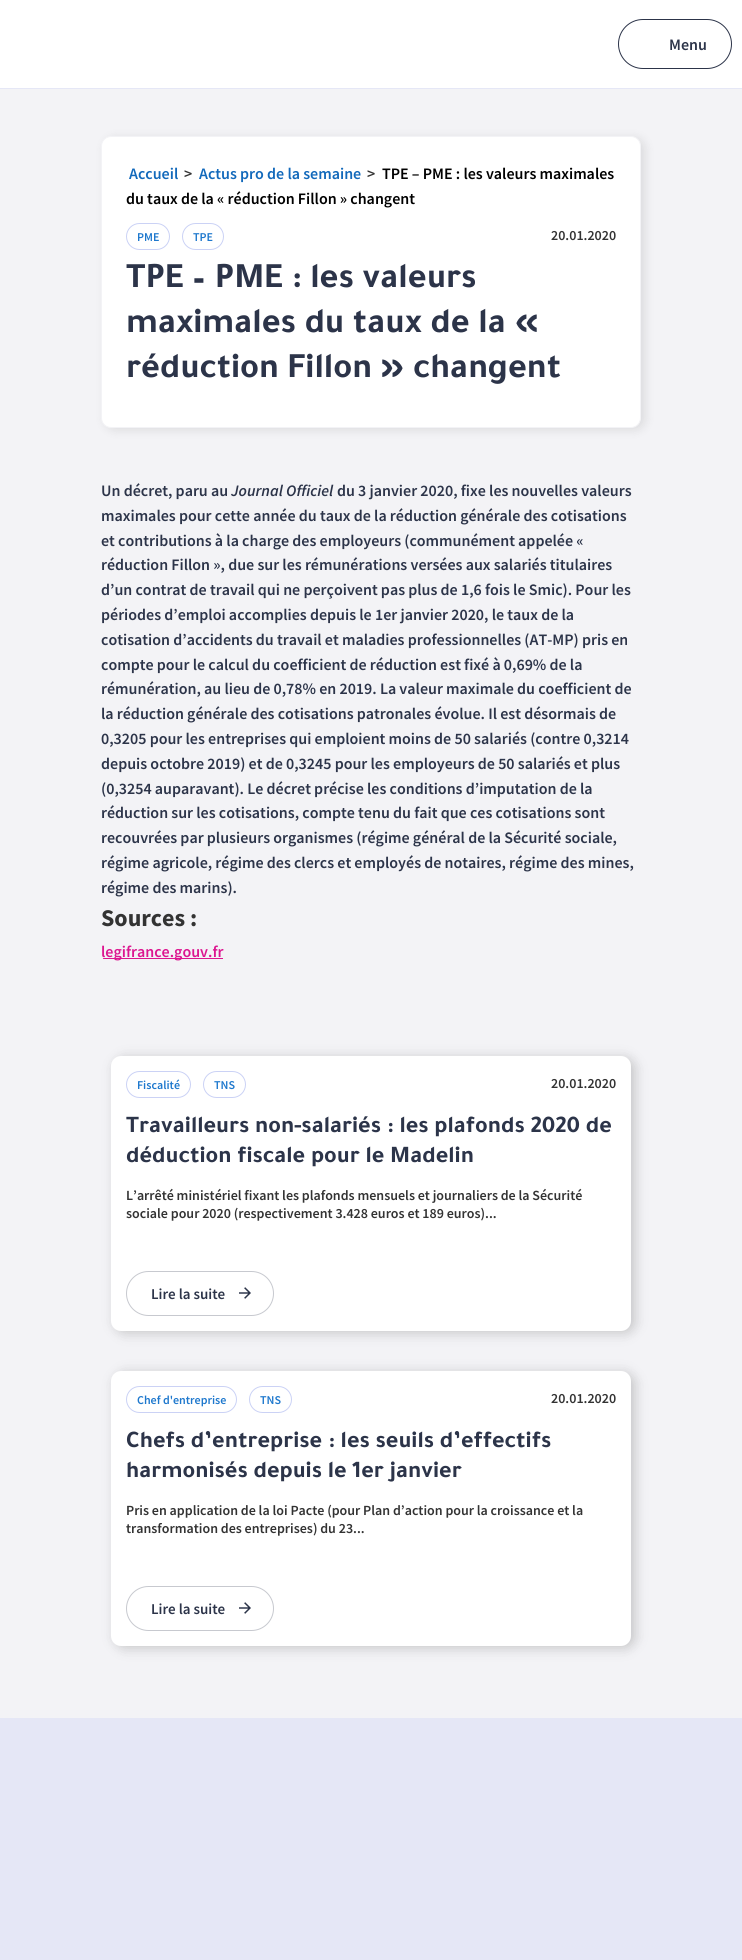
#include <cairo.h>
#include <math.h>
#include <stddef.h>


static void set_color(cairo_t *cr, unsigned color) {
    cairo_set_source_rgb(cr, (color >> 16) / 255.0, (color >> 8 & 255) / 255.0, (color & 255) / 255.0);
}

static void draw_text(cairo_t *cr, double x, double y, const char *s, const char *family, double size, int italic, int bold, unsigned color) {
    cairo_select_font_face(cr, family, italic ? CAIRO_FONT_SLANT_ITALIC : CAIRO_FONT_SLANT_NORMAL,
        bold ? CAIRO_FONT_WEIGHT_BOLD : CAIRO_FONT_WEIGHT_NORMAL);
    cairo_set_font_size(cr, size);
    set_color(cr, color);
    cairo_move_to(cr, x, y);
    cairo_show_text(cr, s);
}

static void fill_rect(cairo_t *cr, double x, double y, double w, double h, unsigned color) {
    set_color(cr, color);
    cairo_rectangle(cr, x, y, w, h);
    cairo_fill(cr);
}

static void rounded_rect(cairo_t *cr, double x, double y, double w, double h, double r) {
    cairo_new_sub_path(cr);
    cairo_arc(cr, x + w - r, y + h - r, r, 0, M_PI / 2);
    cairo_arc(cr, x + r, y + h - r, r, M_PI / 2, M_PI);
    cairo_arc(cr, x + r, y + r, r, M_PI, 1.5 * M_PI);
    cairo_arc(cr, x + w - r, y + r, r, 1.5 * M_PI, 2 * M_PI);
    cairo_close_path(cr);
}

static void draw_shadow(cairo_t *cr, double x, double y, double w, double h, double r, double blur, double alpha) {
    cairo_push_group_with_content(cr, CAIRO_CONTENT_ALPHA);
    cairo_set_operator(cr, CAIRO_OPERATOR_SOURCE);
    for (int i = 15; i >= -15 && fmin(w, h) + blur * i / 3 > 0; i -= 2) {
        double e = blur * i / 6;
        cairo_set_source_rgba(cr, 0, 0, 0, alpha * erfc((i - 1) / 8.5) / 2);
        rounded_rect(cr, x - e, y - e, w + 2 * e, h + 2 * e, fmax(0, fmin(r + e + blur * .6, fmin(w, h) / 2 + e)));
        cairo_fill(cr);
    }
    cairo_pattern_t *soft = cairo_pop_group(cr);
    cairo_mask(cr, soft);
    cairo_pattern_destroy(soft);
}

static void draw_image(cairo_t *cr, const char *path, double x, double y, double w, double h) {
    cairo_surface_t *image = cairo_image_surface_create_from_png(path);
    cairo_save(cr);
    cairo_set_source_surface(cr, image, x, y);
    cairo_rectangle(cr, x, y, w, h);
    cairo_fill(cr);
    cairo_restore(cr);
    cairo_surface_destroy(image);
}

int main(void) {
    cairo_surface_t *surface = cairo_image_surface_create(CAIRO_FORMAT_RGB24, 742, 1960);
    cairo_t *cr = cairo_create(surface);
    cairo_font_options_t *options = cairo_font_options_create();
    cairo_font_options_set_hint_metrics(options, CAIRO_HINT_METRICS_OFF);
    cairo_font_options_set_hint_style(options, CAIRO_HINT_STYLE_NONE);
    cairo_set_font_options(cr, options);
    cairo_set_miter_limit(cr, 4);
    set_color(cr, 0xF3F3F6);
    cairo_paint(cr);
    fill_rect(cr, 0, 0, 742, 88, 0xFFFFFF);
    fill_rect(cr, 0, 88, 742, 1, 0xE5E7F6);
    rounded_rect(cr, 618.5, 19.5, 113, 49, 24.5);
    set_color(cr, 0x2C3449);
    cairo_set_line_width(cr, 1);
    cairo_stroke(cr);
    draw_text(cr, 669, 50, "Menu", "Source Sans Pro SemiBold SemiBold", 16, 0, 0, 0x2C3449);
    set_color(cr, 0x000000);
    draw_shadow(cr, 105, 138, 540, 292, 10, 5, 0.1);
    set_color(cr, 0xFFFFFF);
    rounded_rect(cr, 101.5, 136.5, 539, 291, 9.5);
    cairo_fill_preserve(cr);
    set_color(cr, 0xF3F3F6);
    cairo_stroke(cr);
    draw_text(cr, 129, 179, "Accueil", "Source Sans Pro SemiBold SemiBold", 16, 0, 0, 0x1269BB);
    draw_text(cr, 184, 179, ">", "Source Sans Pro SemiBold SemiBold", 16, 0, 0, 0x333333);
    draw_text(cr, 199, 179, "Actus pro de la semaine", "Source Sans Pro SemiBold SemiBold", 16, 0, 0, 0x1269BB);
    draw_text(cr, 367, 179, ">", "Source Sans Pro SemiBold SemiBold", 16, 0, 0, 0x333333);
    draw_text(cr, 382, 179, "TPE – PME : les valeurs maximales", "Source Sans Pro SemiBold SemiBold", 16, 0, 0, 0x000000);
    draw_text(cr, 126, 204, "du taux de la « réduction Fillon » changent", "Source Sans Pro SemiBold SemiBold", 16, 0, 0, 0x000000);
    rounded_rect(cr, 126.5, 223.5, 43, 26, 13);
    set_color(cr, 0xCBD2F5);
    cairo_stroke(cr);
    draw_text(cr, 137, 241, "PME", "Source Sans Pro SemiBold SemiBold", 12, 0, 0, 0x1E78CD);
    rounded_rect(cr, 182.5, 223.5, 41, 26, 13);
    set_color(cr, 0xCBD2F5);
    cairo_stroke(cr);
    draw_text(cr, 193, 241, "TPE", "Source Sans Pro SemiBold SemiBold", 12, 0, 0, 0x1E78CD);
    draw_text(cr, 551, 240, "20.01.2020", "Source Sans Pro SemiBold SemiBold", 14, 0, 0, 0x333333);
    draw_text(cr, 126, 287, "TPE – PME : les valeurs", "Tajawal", 36, 0, 1, 0x2C3449);
    draw_text(cr, 126, 332, "maximales du taux de la «", "Tajawal", 36, 0, 1, 0x2C3449);
    draw_text(cr, 126, 377, "réduction Fillon » changent", "Tajawal", 36, 0, 1, 0x2C3449);
    draw_text(cr, 101, 496, "Un décret, paru au", "Source Sans Pro SemiBold SemiBold", 16, 0, 0, 0x2C3449);
    draw_text(cr, 231, 496, "Journal Officiel", "Source Sans Pro SemiBold SemiBold", 16, 1, 0, 0x2C3449);
    draw_text(cr, 337, 496, "du 3 janvier 2020, fixe les nouvelles valeurs", "Source Sans Pro SemiBold SemiBold", 16, 0, 0, 0x2C3449);
    draw_text(cr, 101, 521, "maximales pour cette année du taux de la réduction générale des cotisations", "Source Sans Pro SemiBold SemiBold", 16, 0, 0, 0x2C3449);
    draw_text(cr, 101, 546, "et contributions à la charge des employeurs (communément appelée «", "Source Sans Pro SemiBold SemiBold", 16, 0, 0, 0x2C3449);
    draw_text(cr, 101, 570, "réduction Fillon », due sur les rémunérations versées aux salariés titulaires", "Source Sans Pro SemiBold SemiBold", 16, 0, 0, 0x2C3449);
    draw_text(cr, 101, 595, "d’un contrat de travail qui ne perçoivent pas plus de 1,6 fois le Smic). Pour les", "Source Sans Pro SemiBold SemiBold", 16, 0, 0, 0x2C3449);
    draw_text(cr, 101, 620, "périodes d’emploi accomplies depuis le 1er janvier 2020, le taux de la", "Source Sans Pro SemiBold SemiBold", 16, 0, 0, 0x2C3449);
    draw_text(cr, 101, 645, "cotisation d’accidents du travail et maladies professionnelles (AT-MP) pris en", "Source Sans Pro SemiBold SemiBold", 16, 0, 0, 0x2C3449);
    draw_text(cr, 101, 670, "compte pour le calcul du coefficient de réduction est fixé à 0,69% de la", "Source Sans Pro SemiBold SemiBold", 16, 0, 0, 0x2C3449);
    draw_text(cr, 101, 694, "rémunération, au lieu de 0,78% en 2019. La valeur maximale du coefficient de", "Source Sans Pro SemiBold SemiBold", 16, 0, 0, 0x2C3449);
    draw_text(cr, 101, 719, "la réduction générale des cotisations patronales évolue. Il est désormais de", "Source Sans Pro SemiBold SemiBold", 16, 0, 0, 0x2C3449);
    draw_text(cr, 101, 744, "0,3205 pour les entreprises qui emploient moins de 50 salariés (contre 0,3214", "Source Sans Pro SemiBold SemiBold", 16, 0, 0, 0x2C3449);
    draw_text(cr, 101, 769, "depuis octobre 2019) et de 0,3245 pour les employeurs de 50 salariés et plus", "Source Sans Pro SemiBold SemiBold", 16, 0, 0, 0x2C3449);
    draw_text(cr, 101, 794, "(0,3254 auparavant). Le décret précise les conditions d’imputation de la", "Source Sans Pro SemiBold SemiBold", 16, 0, 0, 0x2C3449);
    draw_text(cr, 101, 818, "réduction sur les cotisations, compte tenu du fait que ces cotisations sont", "Source Sans Pro SemiBold SemiBold", 16, 0, 0, 0x2C3449);
    draw_text(cr, 101, 843, "recouvrées par plusieurs organismes (régime général de la Sécurité sociale,", "Source Sans Pro SemiBold SemiBold", 16, 0, 0, 0x2C3449);
    draw_text(cr, 101, 868, "régime agricole, régime des clercs et employés de notaires, régime des mines,", "Source Sans Pro SemiBold SemiBold", 16, 0, 0, 0x2C3449);
    draw_text(cr, 101, 893, "régime des marins).", "Source Sans Pro SemiBold SemiBold", 16, 0, 0, 0x2C3449);
    draw_text(cr, 101, 926, "Sources :", "Source Sans Pro", 24, 0, 1, 0x333333);
    cairo_save(cr);
    rounded_rect(cr, 101, 936, 525, 30, 15);
    cairo_clip(cr);
    fill_rect(cr, 101, 958, 122, 1, 0xDC1690);
    cairo_restore(cr);
    draw_text(cr, 101, 957, "legifrance.gouv.fr", "Source Sans Pro SemiBold SemiBold", 16, 0, 0, 0xDC1690);
    set_color(cr, 0x000000);
    draw_shadow(cr, 115, 1058, 520, 275, 10, 7.5, 0.1);
    draw_shadow(cr, 115, 1058, 520, 275, 10, 5, 0.1);
    set_color(cr, 0xFFFFFF);
    rounded_rect(cr, 111, 1056, 520, 275, 10);
    cairo_fill(cr);
    rounded_rect(cr, 126.5, 1071.5, 64, 26, 13);
    set_color(cr, 0xCBD2F5);
    cairo_stroke(cr);
    draw_text(cr, 137, 1089, "Fiscalité", "Source Sans Pro SemiBold SemiBold", 12, 0, 0, 0x1E78CD);
    rounded_rect(cr, 203.5, 1071.5, 42, 26, 13);
    set_color(cr, 0xCBD2F5);
    cairo_stroke(cr);
    draw_text(cr, 214, 1089, "TNS", "Source Sans Pro SemiBold SemiBold", 12, 0, 0, 0x1E78CD);
    draw_text(cr, 551, 1088, "20.01.2020", "Source Sans Pro SemiBold SemiBold", 14, 0, 0, 0x333333);
    draw_text(cr, 126, 1132, "Travailleurs non-salariés : les plafonds 2020 de", "Tajawal", 24, 0, 1, 0x2C3449);
    draw_text(cr, 126, 1162, "déduction fiscale pour le Madelin", "Tajawal", 24, 0, 1, 0x2C3449);
    draw_text(cr, 126, 1200, "L’arrêté ministériel fixant les plafonds mensuels et journaliers de la Sécurité", "Source Sans Pro SemiBold SemiBold", 14, 0, 0, 0x333333);
    draw_text(cr, 126, 1218, "sociale pour 2020 (respectivement 3.428 euros et 189 euros)...", "Source Sans Pro SemiBold SemiBold", 14, 0, 0, 0x333333);
    draw_image(cr, "assets/img1.png", 239, 1287, 12, 12);
    rounded_rect(cr, 126.5, 1271.5, 147, 44, 22);
    set_color(cr, 0xC7C9CF);
    cairo_stroke(cr);
    draw_text(cr, 151, 1299, "Lire la suite", "Source Sans Pro SemiBold SemiBold", 15, 0, 0, 0x2C3449);
    set_color(cr, 0x000000);
    draw_shadow(cr, 115, 1373, 520, 275, 10, 7.5, 0.1);
    draw_shadow(cr, 115, 1373, 520, 275, 10, 5, 0.1);
    set_color(cr, 0xFFFFFF);
    rounded_rect(cr, 111, 1371, 520, 275, 10);
    cairo_fill(cr);
    rounded_rect(cr, 126.5, 1386.5, 110, 26, 13);
    set_color(cr, 0xCBD2F5);
    cairo_stroke(cr);
    draw_text(cr, 137, 1404, "Chef d'entreprise", "Source Sans Pro SemiBold SemiBold", 12, 0, 0, 0x1E78CD);
    rounded_rect(cr, 249.5, 1386.5, 42, 26, 13);
    set_color(cr, 0xCBD2F5);
    cairo_stroke(cr);
    draw_text(cr, 260, 1404, "TNS", "Source Sans Pro SemiBold SemiBold", 12, 0, 0, 0x1E78CD);
    draw_text(cr, 551, 1403, "20.01.2020", "Source Sans Pro SemiBold SemiBold", 14, 0, 0, 0x333333);
    draw_text(cr, 126, 1447, "Chefs d’entreprise : les seuils d’effectifs", "Tajawal", 24, 0, 1, 0x2C3449);
    draw_text(cr, 126, 1477, "harmonisés depuis le 1er janvier", "Tajawal", 24, 0, 1, 0x2C3449);
    draw_text(cr, 126, 1515, "Pris en application de la loi Pacte (pour Plan d’action pour la croissance et la", "Source Sans Pro SemiBold SemiBold", 14, 0, 0, 0x333333);
    draw_text(cr, 126, 1533, "transformation des entreprises) du 23...", "Source Sans Pro SemiBold SemiBold", 14, 0, 0, 0x333333);
    draw_image(cr, "assets/img1.png", 239, 1602, 12, 12);
    rounded_rect(cr, 126.5, 1586.5, 147, 44, 22);
    set_color(cr, 0xC7C9CF);
    cairo_stroke(cr);
    draw_text(cr, 151, 1614, "Lire la suite", "Source Sans Pro SemiBold SemiBold", 15, 0, 0, 0x2C3449);
    fill_rect(cr, 0, 1718, 742, 242, 0xE5E7F6);
    cairo_surface_write_to_png(surface, "output.png");
    cairo_font_options_destroy(options);
    cairo_destroy(cr);
    cairo_surface_destroy(surface);
    return 0;
}
